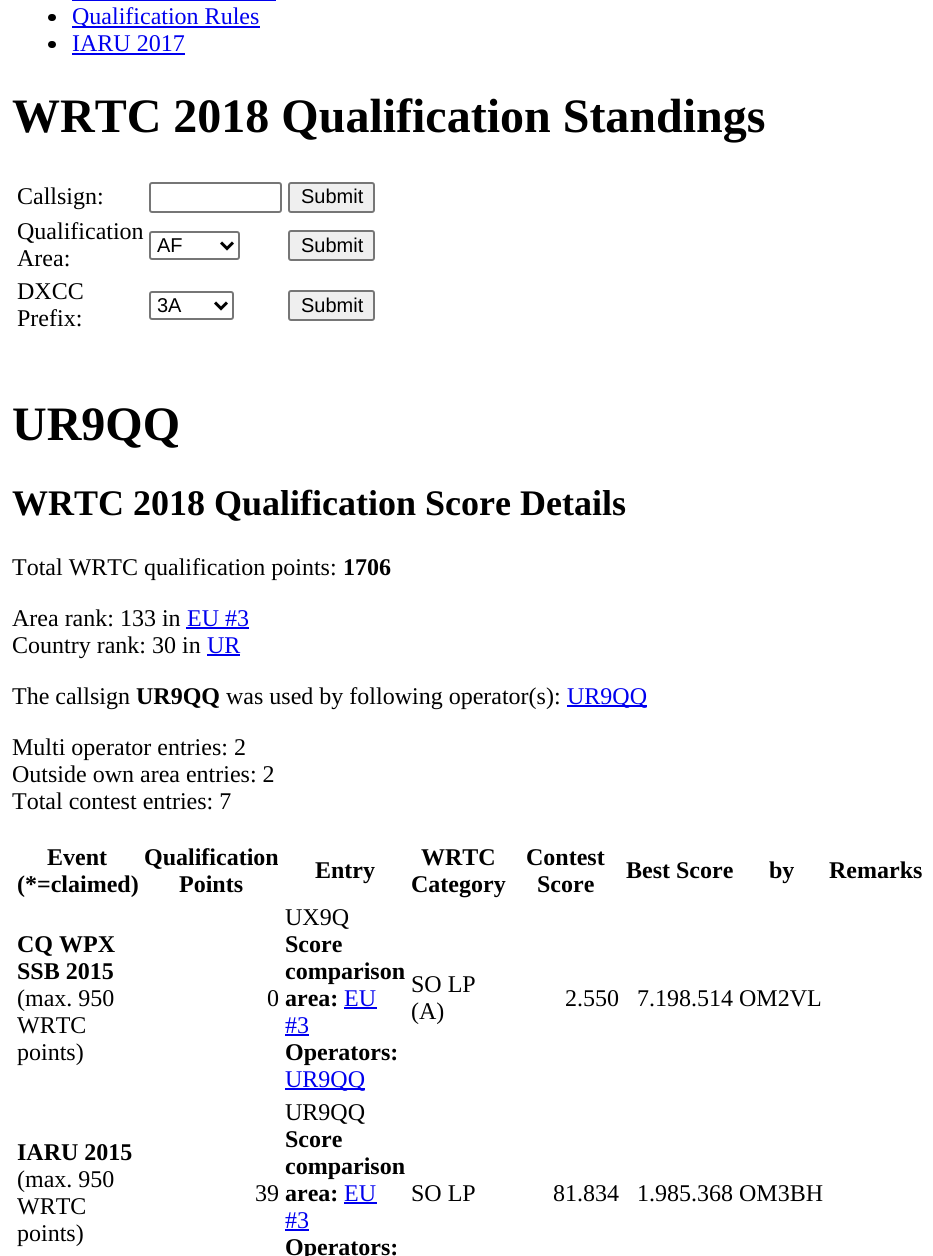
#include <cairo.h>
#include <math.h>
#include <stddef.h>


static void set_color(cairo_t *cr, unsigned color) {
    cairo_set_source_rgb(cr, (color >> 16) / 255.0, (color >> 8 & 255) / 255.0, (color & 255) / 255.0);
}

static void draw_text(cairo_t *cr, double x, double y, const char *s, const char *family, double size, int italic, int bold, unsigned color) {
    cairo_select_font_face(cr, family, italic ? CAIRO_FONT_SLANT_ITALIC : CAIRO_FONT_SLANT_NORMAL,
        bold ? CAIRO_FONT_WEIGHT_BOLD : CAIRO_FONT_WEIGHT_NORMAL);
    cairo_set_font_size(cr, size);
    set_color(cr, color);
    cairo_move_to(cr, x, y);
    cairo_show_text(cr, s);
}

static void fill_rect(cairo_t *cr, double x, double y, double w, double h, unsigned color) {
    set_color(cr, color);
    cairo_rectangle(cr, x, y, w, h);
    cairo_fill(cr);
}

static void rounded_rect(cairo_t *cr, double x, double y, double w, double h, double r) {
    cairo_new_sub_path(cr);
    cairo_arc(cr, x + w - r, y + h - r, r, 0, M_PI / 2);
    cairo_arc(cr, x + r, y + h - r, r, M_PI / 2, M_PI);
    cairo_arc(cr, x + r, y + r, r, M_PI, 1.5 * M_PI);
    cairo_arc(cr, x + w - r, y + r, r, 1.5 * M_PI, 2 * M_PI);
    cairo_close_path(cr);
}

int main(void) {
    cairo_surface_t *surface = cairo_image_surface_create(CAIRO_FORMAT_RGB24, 933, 1256);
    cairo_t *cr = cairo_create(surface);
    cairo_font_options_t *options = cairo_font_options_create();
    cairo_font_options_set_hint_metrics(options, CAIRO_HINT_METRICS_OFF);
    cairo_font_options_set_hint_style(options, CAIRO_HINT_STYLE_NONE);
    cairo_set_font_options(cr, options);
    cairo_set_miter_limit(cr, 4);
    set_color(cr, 0xFFFFFF);
    cairo_paint(cr);
    fill_rect(cr, 72, 0, 204, 1, 0x0000EE);
    set_color(cr, 0x000000);
    rounded_rect(cr, 48, 14, 8, 7, 3.5);
    cairo_fill(cr);
    fill_rect(cr, 72, 26, 188, 2, 0x0000EE);
    draw_text(cr, 72, 24, "Qualification Rules", "Liberation Serif", 24, 0, 0, 0x0000EE);
    set_color(cr, 0x000000);
    rounded_rect(cr, 48, 41, 8, 7, 3.5);
    cairo_fill(cr);
    draw_text(cr, 72, 51, "IARU 2017", "Liberation Serif", 24, 0, 0, 0x0000EE);
    fill_rect(cr, 72, 53, 113, 2, 0x0000EE);
    draw_text(cr, 12, 132, "WRTC 2018 Qualification Standings", "Liberation Serif", 48, 0, 1, 0x000000);
    draw_text(cr, 17, 204, "Callsign:", "Liberation Serif", 24, 0, 0, 0x000000);
    rounded_rect(cr, 150, 183, 131, 29, 2);
    set_color(cr, 0x767676);
    cairo_stroke(cr);
    set_color(cr, 0xEFEFEF);
    rounded_rect(cr, 289, 183, 85, 29, 2);
    cairo_fill_preserve(cr);
    set_color(cr, 0x767676);
    cairo_stroke(cr);
    draw_text(cr, 301, 203, "Submit", "Liberation Sans", 20, 0, 0, 0x000000);
    draw_text(cr, 17, 239, "Qualification", "Liberation Serif", 24, 0, 0, 0x000000);
    draw_text(cr, 17, 266, "Area:", "Liberation Serif", 24, 0, 0, 0x000000);
    rounded_rect(cr, 150, 232, 89, 27, 2);
    set_color(cr, 0x767676);
    cairo_stroke(cr);
    cairo_new_path(cr);
    cairo_move_to(cr, 221, 242.5);
    cairo_line_to(cr, 227, 248.5);
    cairo_line_to(cr, 233, 242.5);
    set_color(cr, 0x000000);
    cairo_set_line_width(cr, 3);
    cairo_stroke(cr);
    draw_text(cr, 157, 252, "AF", "Liberation Sans", 20, 0, 0, 0x000000);
    set_color(cr, 0xEFEFEF);
    rounded_rect(cr, 289, 231, 85, 29, 2);
    cairo_fill_preserve(cr);
    set_color(cr, 0x767676);
    cairo_set_line_width(cr, 2);
    cairo_stroke(cr);
    draw_text(cr, 301, 252, "Submit", "Liberation Sans", 20, 0, 0, 0x000000);
    draw_text(cr, 17, 299, "DXCC", "Liberation Serif", 24, 0, 0, 0x000000);
    draw_text(cr, 17, 326, "Prefix:", "Liberation Serif", 24, 0, 0, 0x000000);
    rounded_rect(cr, 150, 292, 83, 27, 2);
    set_color(cr, 0x767676);
    cairo_stroke(cr);
    cairo_new_path(cr);
    cairo_move_to(cr, 215, 302.5);
    cairo_line_to(cr, 221, 308.5);
    cairo_line_to(cr, 227, 302.5);
    set_color(cr, 0x000000);
    cairo_set_line_width(cr, 3);
    cairo_stroke(cr);
    draw_text(cr, 157, 312, "3A", "Liberation Sans", 20, 0, 0, 0x000000);
    set_color(cr, 0xEFEFEF);
    rounded_rect(cr, 289, 291, 85, 29, 2);
    cairo_fill_preserve(cr);
    set_color(cr, 0x767676);
    cairo_set_line_width(cr, 2);
    cairo_stroke(cr);
    draw_text(cr, 301, 312, "Submit", "Liberation Sans", 20, 0, 0, 0x000000);
    draw_text(cr, 12, 440, "UR9QQ", "Liberation Serif", 48, 0, 1, 0x000000);
    draw_text(cr, 12, 515, "WRTC 2018 Qualification Score Details", "Liberation Serif", 36, 0, 1, 0x000000);
    draw_text(cr, 12, 575, "Total WRTC qualification points:", "Liberation Serif", 24, 0, 0, 0x000000);
    draw_text(cr, 343, 575, "1706", "Liberation Serif", 24, 0, 1, 0x000000);
    draw_text(cr, 12, 626, "Area rank: 133 in", "Liberation Serif", 24, 0, 0, 0x000000);
    draw_text(cr, 187, 626, "EU #3", "Liberation Serif", 24, 0, 0, 0x0000EE);
    fill_rect(cr, 186, 627, 63, 2, 0x0000EE);
    draw_text(cr, 12, 653, "Country rank: 30 in", "Liberation Serif", 24, 0, 0, 0x000000);
    draw_text(cr, 207, 653, "UR", "Liberation Serif", 24, 0, 0, 0x0000EE);
    fill_rect(cr, 207, 654, 33, 2, 0x0000EE);
    draw_text(cr, 12, 704, "The callsign", "Liberation Serif", 24, 0, 0, 0x000000);
    draw_text(cr, 136, 704, "UR9QQ", "Liberation Serif", 24, 0, 1, 0x000000);
    draw_text(cr, 226, 704, "was used by following operator(s):", "Liberation Serif", 24, 0, 0, 0x000000);
    fill_rect(cr, 567, 705, 80, 2, 0x0000EE);
    draw_text(cr, 567, 704, "UR9QQ", "Liberation Serif", 24, 0, 0, 0x0000EE);
    draw_text(cr, 12, 755, "Multi operator entries: 2", "Liberation Serif", 24, 0, 0, 0x000000);
    draw_text(cr, 12, 782, "Outside own area entries: 2", "Liberation Serif", 24, 0, 0, 0x000000);
    draw_text(cr, 12, 809, "Total contest entries: 7", "Liberation Serif", 24, 0, 0, 0x000000);
    draw_text(cr, 47, 865, "Event", "Liberation Serif", 24, 0, 1, 0x000000);
    draw_text(cr, 17, 892, "(*=claimed)", "Liberation Serif", 24, 0, 1, 0x000000);
    draw_text(cr, 144, 865, "Qualification", "Liberation Serif", 24, 0, 1, 0x000000);
    draw_text(cr, 179, 892, "Points", "Liberation Serif", 24, 0, 1, 0x000000);
    draw_text(cr, 315, 878, "Entry", "Liberation Serif", 24, 0, 1, 0x000000);
    draw_text(cr, 421, 865, "WRTC", "Liberation Serif", 24, 0, 1, 0x000000);
    draw_text(cr, 411, 892, "Category", "Liberation Serif", 24, 0, 1, 0x000000);
    draw_text(cr, 526, 865, "Contest", "Liberation Serif", 24, 0, 1, 0x000000);
    draw_text(cr, 537, 892, "Score", "Liberation Serif", 24, 0, 1, 0x000000);
    draw_text(cr, 626, 878, "Best Score", "Liberation Serif", 24, 0, 1, 0x000000);
    draw_text(cr, 769, 878, "by", "Liberation Serif", 24, 0, 1, 0x000000);
    draw_text(cr, 829, 878, "Remarks", "Liberation Serif", 24, 0, 1, 0x000000);
    draw_text(cr, 17, 952, "CQ WPX", "Liberation Serif", 24, 0, 1, 0x000000);
    draw_text(cr, 17, 979, "SSB 2015", "Liberation Serif", 24, 0, 1, 0x000000);
    draw_text(cr, 17, 1006, "(max. 950", "Liberation Serif", 24, 0, 0, 0x000000);
    draw_text(cr, 17, 1033, "WRTC", "Liberation Serif", 24, 0, 0, 0x000000);
    draw_text(cr, 17, 1060, "points)", "Liberation Serif", 24, 0, 0, 0x000000);
    draw_text(cr, 267, 1006, "0", "Liberation Serif", 24, 0, 0, 0x000000);
    draw_text(cr, 285, 925, "UX9Q", "Liberation Serif", 24, 0, 0, 0x000000);
    draw_text(cr, 285, 952, "Score", "Liberation Serif", 24, 0, 1, 0x000000);
    draw_text(cr, 285, 979, "comparison", "Liberation Serif", 24, 0, 1, 0x000000);
    draw_text(cr, 285, 1006, "area:", "Liberation Serif", 24, 0, 1, 0x000000);
    draw_text(cr, 344, 1006, "EU", "Liberation Serif", 24, 0, 0, 0x0000EE);
    fill_rect(cr, 344, 1007, 33, 2, 0x0000EE);
    draw_text(cr, 285, 1033, "#3", "Liberation Serif", 24, 0, 0, 0x0000EE);
    fill_rect(cr, 285, 1034, 24, 2, 0x0000EE);
    draw_text(cr, 285, 1060, "Operators:", "Liberation Serif", 24, 0, 1, 0x000000);
    fill_rect(cr, 285, 1088, 80, 2, 0x0000EE);
    draw_text(cr, 285, 1087, "UR9QQ", "Liberation Serif", 24, 0, 0, 0x0000EE);
    draw_text(cr, 411, 992, "SO LP", "Liberation Serif", 24, 0, 0, 0x000000);
    draw_text(cr, 411, 1019, "(A)", "Liberation Serif", 24, 0, 0, 0x000000);
    draw_text(cr, 565, 1006, "2.550", "Liberation Serif", 24, 0, 0, 0x000000);
    draw_text(cr, 637, 1006, "7.198.514 OM2VL", "Liberation Serif", 24, 0, 0, 0x000000);
    draw_text(cr, 17, 1160, "IARU 2015", "Liberation Serif", 24, 0, 1, 0x000000);
    draw_text(cr, 17, 1187, "(max. 950", "Liberation Serif", 24, 0, 0, 0x000000);
    draw_text(cr, 17, 1214, "WRTC", "Liberation Serif", 24, 0, 0, 0x000000);
    draw_text(cr, 17, 1241, "points)", "Liberation Serif", 24, 0, 0, 0x000000);
    draw_text(cr, 255, 1201, "39", "Liberation Serif", 24, 0, 0, 0x000000);
    draw_text(cr, 285, 1120, "UR9QQ", "Liberation Serif", 24, 0, 0, 0x000000);
    draw_text(cr, 285, 1147, "Score", "Liberation Serif", 24, 0, 1, 0x000000);
    draw_text(cr, 285, 1174, "comparison", "Liberation Serif", 24, 0, 1, 0x000000);
    draw_text(cr, 285, 1201, "area:", "Liberation Serif", 24, 0, 1, 0x000000);
    draw_text(cr, 344, 1201, "EU", "Liberation Serif", 24, 0, 0, 0x0000EE);
    fill_rect(cr, 344, 1202, 33, 2, 0x0000EE);
    draw_text(cr, 285, 1228, "#3", "Liberation Serif", 24, 0, 0, 0x0000EE);
    fill_rect(cr, 285, 1229, 24, 2, 0x0000EE);
    draw_text(cr, 285, 1255, "Operators:", "Liberation Serif", 24, 0, 1, 0x000000);
    draw_text(cr, 411, 1201, "SO LP", "Liberation Serif", 24, 0, 0, 0x000000);
    draw_text(cr, 553, 1201, "81.834", "Liberation Serif", 24, 0, 0, 0x000000);
    draw_text(cr, 637, 1201, "1.985.368 OM3BH", "Liberation Serif", 24, 0, 0, 0x000000);
    cairo_surface_write_to_png(surface, "output.png");
    cairo_font_options_destroy(options);
    cairo_destroy(cr);
    cairo_surface_destroy(surface);
    return 0;
}
